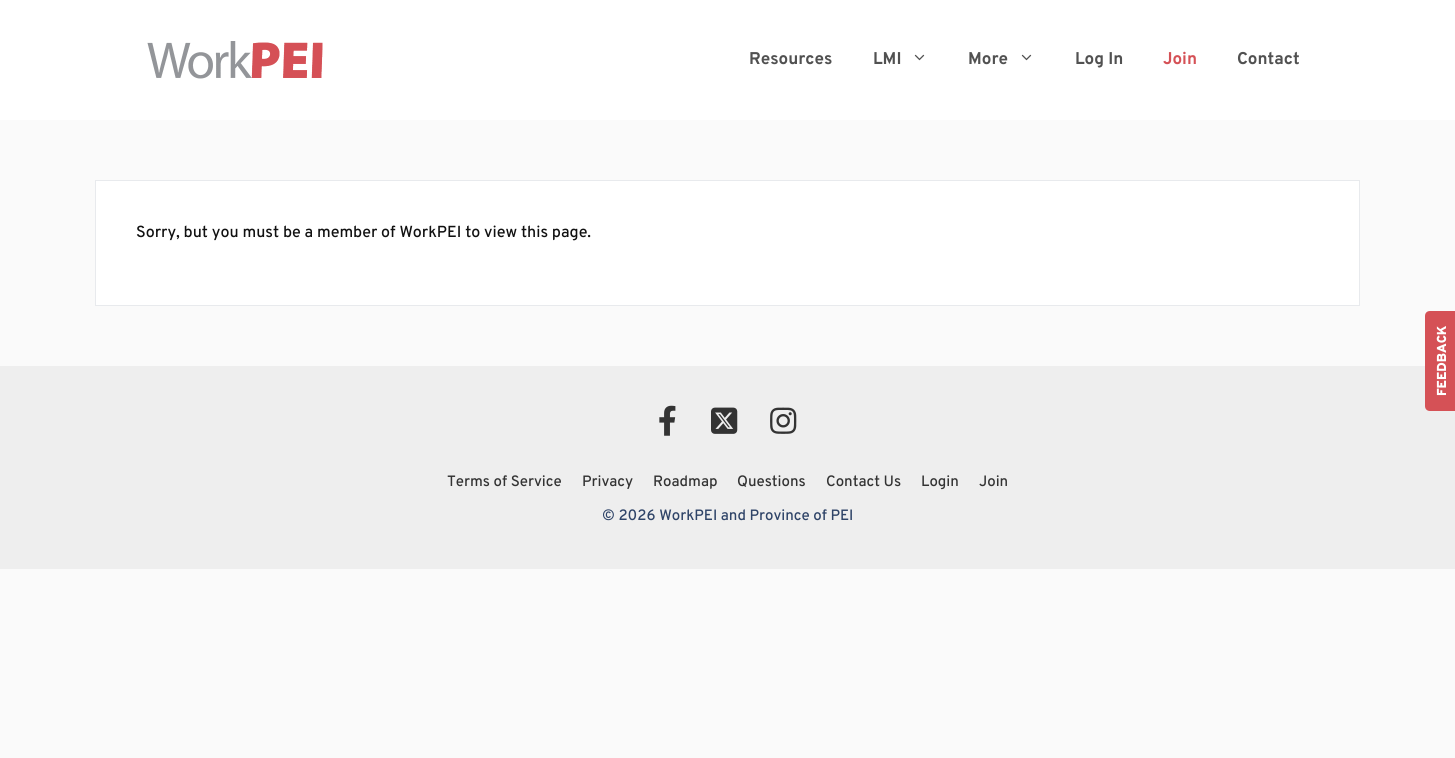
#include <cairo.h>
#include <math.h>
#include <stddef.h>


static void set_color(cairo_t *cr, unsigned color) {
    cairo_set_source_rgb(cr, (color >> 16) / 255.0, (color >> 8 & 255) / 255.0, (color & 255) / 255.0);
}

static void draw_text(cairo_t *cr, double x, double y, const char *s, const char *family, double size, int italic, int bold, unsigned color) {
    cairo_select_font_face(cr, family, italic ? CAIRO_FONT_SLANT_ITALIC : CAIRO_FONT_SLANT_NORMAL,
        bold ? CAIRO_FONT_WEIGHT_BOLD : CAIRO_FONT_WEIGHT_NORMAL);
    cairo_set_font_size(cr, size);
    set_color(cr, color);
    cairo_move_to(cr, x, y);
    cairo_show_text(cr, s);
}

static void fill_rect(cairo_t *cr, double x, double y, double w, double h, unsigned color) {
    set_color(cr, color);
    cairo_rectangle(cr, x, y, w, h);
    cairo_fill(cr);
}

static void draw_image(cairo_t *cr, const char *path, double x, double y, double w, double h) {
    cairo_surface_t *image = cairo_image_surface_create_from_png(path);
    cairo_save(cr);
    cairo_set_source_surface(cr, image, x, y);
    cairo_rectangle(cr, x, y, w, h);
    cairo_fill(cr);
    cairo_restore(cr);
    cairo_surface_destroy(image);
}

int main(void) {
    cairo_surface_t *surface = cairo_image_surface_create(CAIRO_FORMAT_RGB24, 1455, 758);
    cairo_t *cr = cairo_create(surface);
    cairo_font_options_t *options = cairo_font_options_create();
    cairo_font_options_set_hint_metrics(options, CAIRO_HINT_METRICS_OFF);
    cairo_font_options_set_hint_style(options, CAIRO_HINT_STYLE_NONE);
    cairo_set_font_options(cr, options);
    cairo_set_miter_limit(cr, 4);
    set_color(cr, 0xFAFAFA);
    cairo_paint(cr);
    fill_rect(cr, 0, 0, 1455, 120, 0xFFFFFF);
    draw_image(cr, "assets/img1.png", 147, 41, 176, 38);
    draw_text(cr, 749, 64, "Resources", "Overpass", 17, 0, 1, 0x515151);
    draw_text(cr, 873, 64, "LMI", "Overpass", 17, 0, 1, 0x515151);
    draw_image(cr, "assets/img2.png", 914, 54, 11, 7);
    draw_text(cr, 968, 64, "More", "Overpass", 17, 0, 1, 0x515151);
    draw_image(cr, "assets/img2.png", 1021, 54, 11, 7);
    draw_text(cr, 1075, 64, "Log In", "Overpass", 17, 0, 1, 0x515151);
    draw_text(cr, 1163, 64, "Join", "Overpass", 17, 0, 1, 0xD55156);
    draw_text(cr, 1237, 64, "Contact", "Overpass", 17, 0, 1, 0x515151);
    set_color(cr, 0xFFFFFF);
    cairo_rectangle(cr, 95.5, 180.5, 1264, 125);
    cairo_fill_preserve(cr);
    set_color(cr, 0xE8EAED);
    cairo_set_line_width(cr, 1);
    cairo_stroke(cr);
    draw_text(cr, 136, 237, "Sorry, but you must be a member of WorkPEI to view this page.", "Overpass Medium", 16, 0, 0, 0x111111);
    fill_rect(cr, 0, 366, 1455, 203, 0xEEEEEE);
    set_color(cr, 0xD55156);
    cairo_new_path(cr);
    cairo_move_to(cr, 1425, 406);
    cairo_line_to(cr, 1425, 316);
    cairo_curve_to(cr, 1425, 313, 1427, 311, 1430, 311);
    cairo_line_to(cr, 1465, 311);
    cairo_line_to(cr, 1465, 411);
    cairo_line_to(cr, 1430, 411);
    cairo_curve_to(cr, 1427, 411, 1425, 409, 1425, 406);
    cairo_close_path(cr);
    cairo_fill(cr);
    cairo_save(cr);
    cairo_translate(cr, 1446, 396);
    cairo_rotate(cr, -90 * M_PI / 180);
    draw_text(cr, 0, 0, "FEEDBACK", "Overpass Black", 13, 0, 0, 0xFFFFFF);
    cairo_restore(cr);
    draw_image(cr, "assets/img3.png", 659, 405, 17, 31);
    draw_image(cr, "assets/img4.png", 711, 407, 27, 27);
    draw_image(cr, "assets/img5.png", 770, 407, 27, 27);
    draw_text(cr, 447, 486, "Terms of Service", "Overpass Medium", 15, 0, 0, 0x333333);
    draw_text(cr, 582, 486, "Privacy", "Overpass Medium", 15, 0, 0, 0x333333);
    draw_text(cr, 653, 486, "Roadmap", "Overpass Medium", 15, 0, 0, 0x333333);
    draw_text(cr, 737, 486, "Questions", "Overpass Medium", 15, 0, 0, 0x333333);
    draw_text(cr, 826, 486, "Contact Us", "Overpass Medium", 15, 0, 0, 0x333333);
    draw_text(cr, 921, 486, "Login", "Overpass Medium", 15, 0, 0, 0x333333);
    draw_text(cr, 979, 486, "Join", "Overpass Medium", 15, 0, 0, 0x333333);
    draw_text(cr, 602, 520, "© 2026 WorkPEI and Province of PEI", "Overpass Medium", 15, 0, 0, 0x2F4468);
    cairo_surface_write_to_png(surface, "output.png");
    cairo_font_options_destroy(options);
    cairo_destroy(cr);
    cairo_surface_destroy(surface);
    return 0;
}
